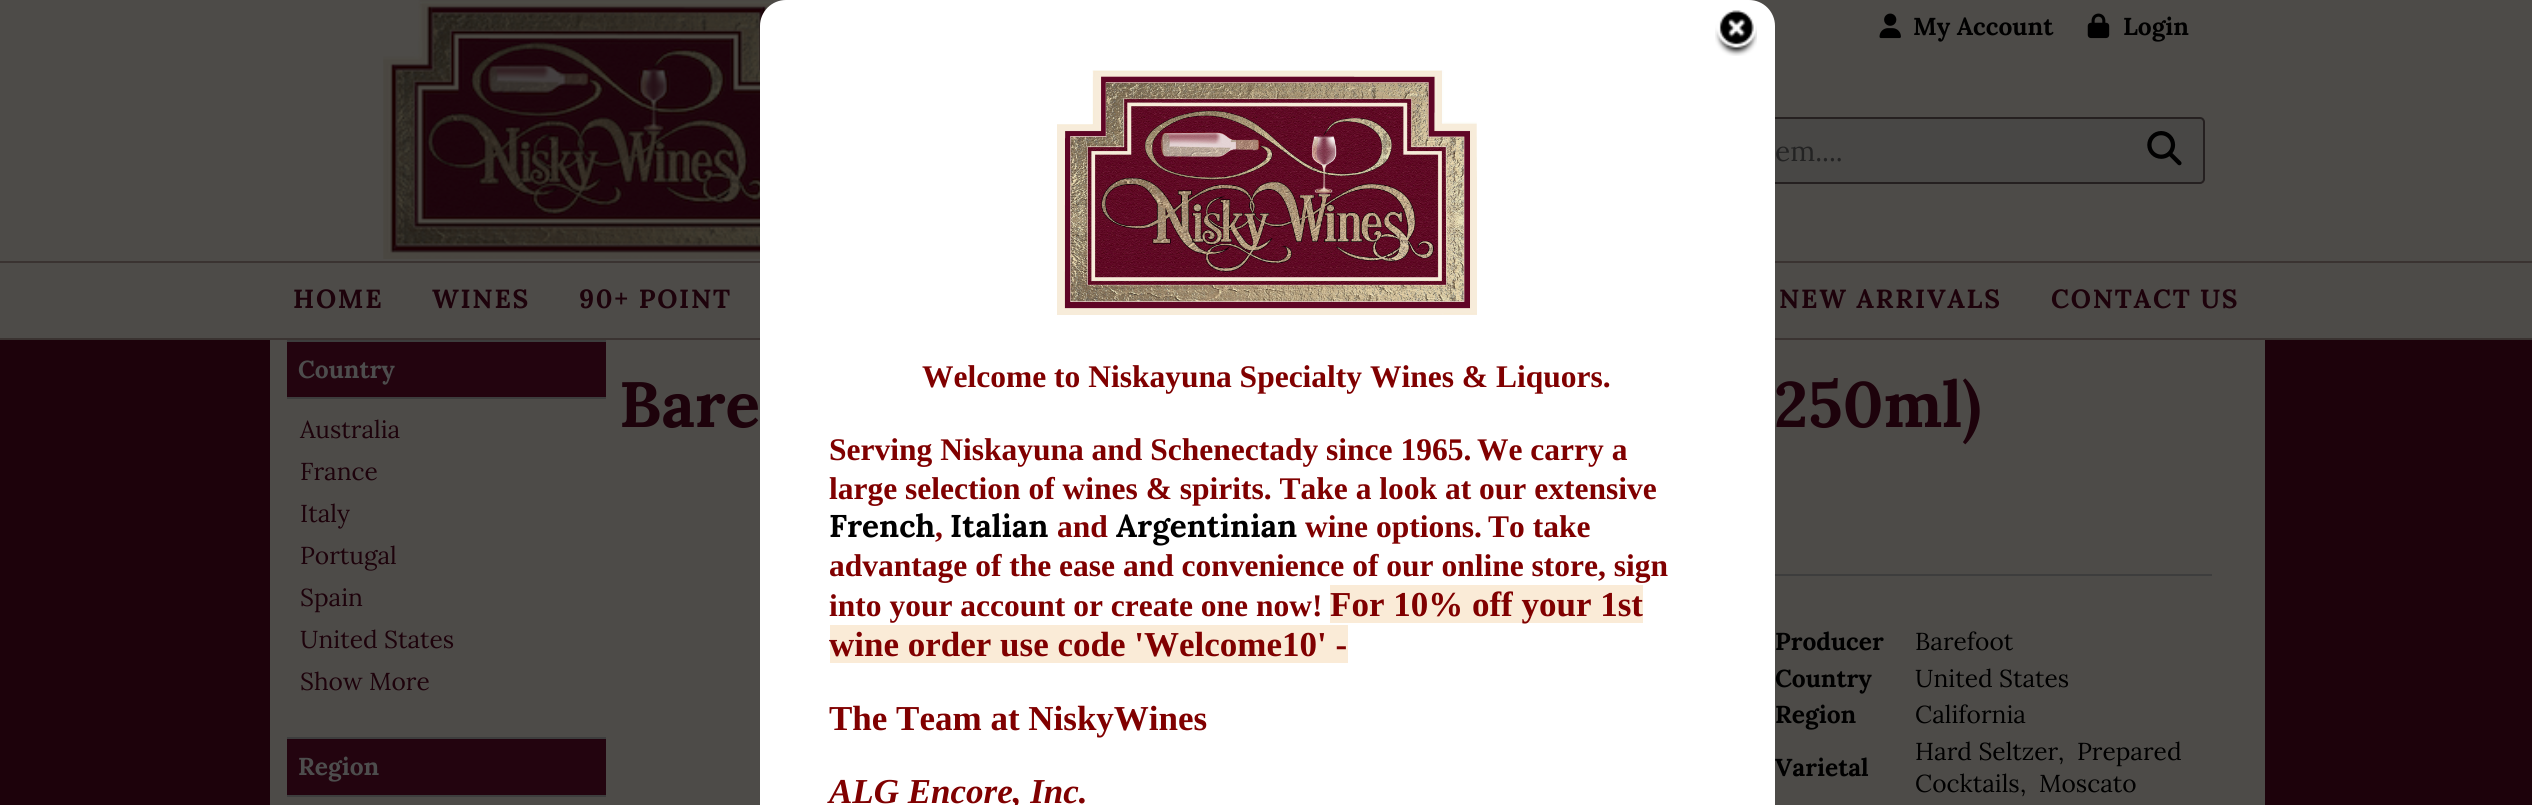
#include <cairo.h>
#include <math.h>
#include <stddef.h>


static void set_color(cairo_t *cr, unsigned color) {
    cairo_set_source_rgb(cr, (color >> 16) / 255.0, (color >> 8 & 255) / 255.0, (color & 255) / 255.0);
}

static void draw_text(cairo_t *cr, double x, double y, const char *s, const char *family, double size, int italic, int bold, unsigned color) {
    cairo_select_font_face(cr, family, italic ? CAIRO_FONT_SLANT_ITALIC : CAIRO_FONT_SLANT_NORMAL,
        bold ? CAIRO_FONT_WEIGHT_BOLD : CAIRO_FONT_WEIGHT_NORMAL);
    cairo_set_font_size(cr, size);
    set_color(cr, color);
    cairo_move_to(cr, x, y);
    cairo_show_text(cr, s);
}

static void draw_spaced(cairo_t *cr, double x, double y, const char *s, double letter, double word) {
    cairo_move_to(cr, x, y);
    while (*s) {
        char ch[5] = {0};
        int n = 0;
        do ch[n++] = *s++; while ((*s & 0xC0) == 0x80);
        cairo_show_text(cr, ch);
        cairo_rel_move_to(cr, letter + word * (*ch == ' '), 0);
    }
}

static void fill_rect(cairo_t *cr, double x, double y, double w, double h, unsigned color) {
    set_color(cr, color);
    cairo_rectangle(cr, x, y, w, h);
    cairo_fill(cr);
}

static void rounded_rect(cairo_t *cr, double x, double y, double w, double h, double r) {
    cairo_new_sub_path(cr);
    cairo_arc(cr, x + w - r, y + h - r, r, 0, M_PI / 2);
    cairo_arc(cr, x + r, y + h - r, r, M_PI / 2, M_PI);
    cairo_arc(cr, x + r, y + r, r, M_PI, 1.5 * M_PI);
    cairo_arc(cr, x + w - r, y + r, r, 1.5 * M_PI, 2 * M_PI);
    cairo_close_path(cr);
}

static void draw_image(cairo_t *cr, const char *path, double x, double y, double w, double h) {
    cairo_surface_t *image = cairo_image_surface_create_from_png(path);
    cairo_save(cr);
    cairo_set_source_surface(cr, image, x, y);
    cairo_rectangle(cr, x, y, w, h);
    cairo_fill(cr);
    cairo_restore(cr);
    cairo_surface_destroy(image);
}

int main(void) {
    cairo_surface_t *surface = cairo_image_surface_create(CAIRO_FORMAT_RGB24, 2532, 805);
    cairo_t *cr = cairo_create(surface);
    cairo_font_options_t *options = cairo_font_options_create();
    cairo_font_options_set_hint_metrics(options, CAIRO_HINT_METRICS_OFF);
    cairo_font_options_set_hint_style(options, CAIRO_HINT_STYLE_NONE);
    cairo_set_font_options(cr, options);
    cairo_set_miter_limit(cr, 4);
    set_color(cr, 0x1D020B);
    cairo_paint(cr);
    fill_rect(cr, 0, 0, 2532, 338, 0x4D4B48);
    draw_image(cr, "assets/img1.png", 383, 0, 391, 259);
    draw_image(cr, "assets/img2.png", 1879, 13, 22, 26);
    draw_text(cr, 1913, 35, "My Account", "Lora", 24.5, 0, 1, 0x000000);
    draw_image(cr, "assets/img3.png", 2087, 13, 23, 26);
    draw_text(cr, 2123, 35, "Login", "Lora", 24.5, 0, 1, 0x000000);
    set_color(cr, 0x484745);
    rounded_rect(cr, 1562, 118, 642, 65, 4);
    cairo_fill_preserve(cr);
    set_color(cr, 0x252020);
    cairo_stroke(cr);
    draw_text(cr, 1775, 161, "em....", "Lora", 28, 0, 0, 0x232323);
    draw_image(cr, "assets/img4.png", 2147, 131, 35, 35);
    fill_rect(cr, 0, 261, 2532, 2, 0x3A3331);
    fill_rect(cr, 0, 338, 2532, 2, 0x3A3331);
    cairo_select_font_face(cr, "Lora", CAIRO_FONT_SLANT_NORMAL, CAIRO_FONT_WEIGHT_BOLD);
    cairo_set_font_size(cr, 26.25);
    set_color(cr, 0x1D020B);
    draw_spaced(cr, 293, 308, "HOME", 1.75, 0);
    draw_spaced(cr, 432, 308, "WINES", 1.75, 0);
    draw_spaced(cr, 579, 308, "90+ POINT", 1.75, 0);
    draw_spaced(cr, 1779, 308, "NEW ARRIVALS", 1.75, 0);
    draw_spaced(cr, 2051, 308, "CONTACT US", 1.75, 0);
    fill_rect(cr, 270, 340, 1995, 465, 0x4D4B48);
    fill_rect(cr, 287, 342, 319, 55, 0x23040F);
    fill_rect(cr, 287, 340, 319, 2, 0x3D3D3D);
    fill_rect(cr, 287, 397, 319, 2, 0x3D3D3D);
    draw_text(cr, 298, 378, "Country", "Lora", 24.5, 0, 1, 0x4D4D4D);
    draw_text(cr, 300, 438, "Australia", "Lora", 24.5, 0, 0, 0x1D020B);
    draw_text(cr, 300, 480, "France", "Lora", 24.5, 0, 0, 0x1D020B);
    draw_text(cr, 300, 522, "Italy", "Lora", 24.5, 0, 0, 0x1D020B);
    draw_text(cr, 300, 564, "Portugal", "Lora", 24.5, 0, 0, 0x1D020B);
    draw_text(cr, 300, 606, "Spain", "Lora", 24.5, 0, 0, 0x1D020B);
    draw_text(cr, 300, 648, "United States", "Lora", 24.5, 0, 0, 0x1D020B);
    draw_text(cr, 300, 690, "Show More", "Lora", 24.5, 0, 0, 0x1D020B);
    fill_rect(cr, 287, 739, 319, 56, 0x23040F);
    fill_rect(cr, 287, 737, 319, 2, 0x3D3D3D);
    fill_rect(cr, 287, 795, 319, 2, 0x3D3D3D);
    draw_text(cr, 298, 775, "Region", "Lora", 24.5, 0, 1, 0x4D4D4D);
    draw_text(cr, 619, 427, "Bare", "Lora", 64, 0, 1, 0x1D020B);
    draw_text(cr, 1774, 427, "250ml)", "Lora", 64, 0, 1, 0x1D020B);
    fill_rect(cr, 1775, 574, 437, 2, 0x3D3D3D);
    draw_text(cr, 1775, 650, "Producer", "Lora", 24.5, 0, 1, 0x000000);
    draw_text(cr, 1915, 650, "Barefoot", "Lora", 24.5, 0, 0, 0x000000);
    draw_text(cr, 1775, 687, "Country", "Lora", 24.5, 0, 1, 0x000000);
    draw_text(cr, 1915, 687, "United States", "Lora", 24.5, 0, 0, 0x000000);
    draw_text(cr, 1775, 723, "Region", "Lora", 24.5, 0, 1, 0x000000);
    draw_text(cr, 1915, 723, "California", "Lora", 24.5, 0, 0, 0x000000);
    draw_text(cr, 1775, 776, "Varietal", "Lora", 24.5, 0, 1, 0x000000);
    draw_text(cr, 1915, 760, "Hard Seltzer", "Lora", 24.5, 0, 0, 0x000000);
    draw_text(cr, 2058, 760, ",", "Lora", 24.5, 0, 0, 0x000000);
    draw_text(cr, 2077, 760, "Prepared", "Lora", 24.5, 0, 0, 0x000000);
    draw_text(cr, 1915, 792, "Cocktails", "Lora", 24.5, 0, 0, 0x000000);
    draw_text(cr, 2020, 792, ",", "Lora", 24.5, 0, 0, 0x000000);
    draw_text(cr, 2039, 792, "Moscato", "Lora", 24.5, 0, 0, 0x000000);
    set_color(cr, 0xFFFFFF);
    rounded_rect(cr, 760, 0, 1015, 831, 26);
    cairo_fill(cr);
    draw_image(cr, "assets/img5.png", 1715, 10, 42, 46);
    draw_image(cr, "assets/img6.png", 1057, 70, 420, 245);
    draw_text(cr, 922, 387, "Welcome to Niskayuna Specialty Wines & Liquors.", "Liberation Serif", 31.5, 0, 1, 0x800000);
    draw_text(cr, 829, 460, "Serving Niskayuna and Schenectady since 1965.", "Liberation Serif", 31.5, 0, 1, 0x800000);
    draw_text(cr, 1477, 460, "We carry a", "Liberation Serif", 31.5, 0, 1, 0x800000);
    draw_text(cr, 829, 499, "large selection of wines & spirits. Take a look at our extensive", "Liberation Serif", 31.5, 0, 1, 0x800000);
    draw_text(cr, 829, 537, "French", "Lora", 31.5, 0, 1, 0x000000);
    draw_text(cr, 935, 537, ",", "Liberation Serif", 31.5, 0, 1, 0x800000);
    draw_text(cr, 950, 537, "Italian", "Lora", 31.5, 0, 1, 0x000000);
    draw_text(cr, 1057, 537, "and", "Liberation Serif", 31.5, 0, 1, 0x800000);
    draw_text(cr, 1116, 537, "Argentinian", "Lora", 31.5, 0, 1, 0x000000);
    draw_text(cr, 1305, 537, "wine options.", "Liberation Serif", 31.5, 0, 1, 0x800000);
    draw_text(cr, 1488, 537, "To take", "Liberation Serif", 31.5, 0, 1, 0x800000);
    draw_text(cr, 829, 576, "advantage of the ease and convenience of our online store, sign", "Liberation Serif", 31.5, 0, 1, 0x800000);
    draw_text(cr, 829, 616, "into your account or create one now!", "Liberation Serif", 31.5, 0, 1, 0x800000);
    fill_rect(cr, 1330, 585, 313, 38, 0xFAEBD7);
    draw_text(cr, 1330, 616, "For 10% off your 1st", "Liberation Serif", 35, 0, 1, 0x800000);
    fill_rect(cr, 830, 625, 518, 38, 0xFAEBD7);
    draw_text(cr, 829, 656, "wine order use code 'Welcome10' -", "Liberation Serif", 35, 0, 1, 0x800000);
    draw_text(cr, 829, 730, "The Team at NiskyWines", "Liberation Serif", 35, 0, 1, 0x800000);
    draw_text(cr, 829, 803, "ALG Encore, Inc.", "Liberation Serif", 35, 1, 1, 0x800000);
    cairo_surface_write_to_png(surface, "output.png");
    cairo_font_options_destroy(options);
    cairo_destroy(cr);
    cairo_surface_destroy(surface);
    return 0;
}
